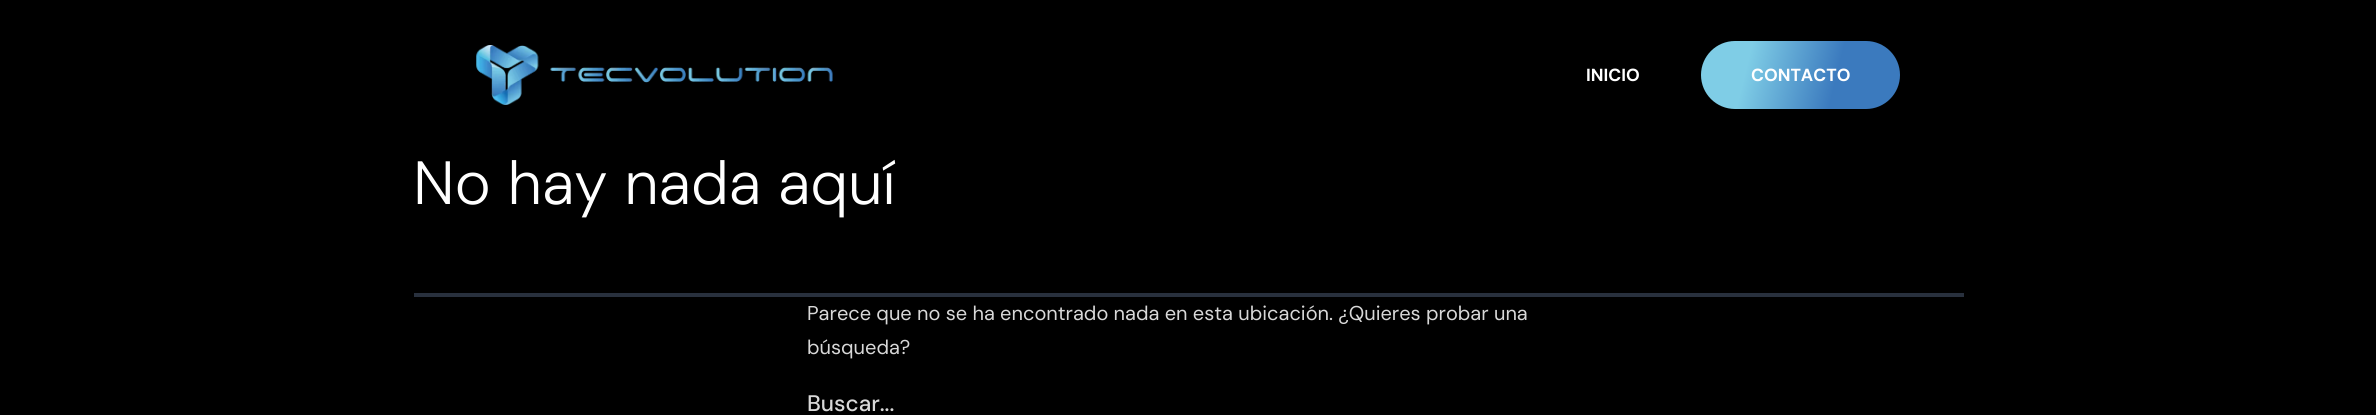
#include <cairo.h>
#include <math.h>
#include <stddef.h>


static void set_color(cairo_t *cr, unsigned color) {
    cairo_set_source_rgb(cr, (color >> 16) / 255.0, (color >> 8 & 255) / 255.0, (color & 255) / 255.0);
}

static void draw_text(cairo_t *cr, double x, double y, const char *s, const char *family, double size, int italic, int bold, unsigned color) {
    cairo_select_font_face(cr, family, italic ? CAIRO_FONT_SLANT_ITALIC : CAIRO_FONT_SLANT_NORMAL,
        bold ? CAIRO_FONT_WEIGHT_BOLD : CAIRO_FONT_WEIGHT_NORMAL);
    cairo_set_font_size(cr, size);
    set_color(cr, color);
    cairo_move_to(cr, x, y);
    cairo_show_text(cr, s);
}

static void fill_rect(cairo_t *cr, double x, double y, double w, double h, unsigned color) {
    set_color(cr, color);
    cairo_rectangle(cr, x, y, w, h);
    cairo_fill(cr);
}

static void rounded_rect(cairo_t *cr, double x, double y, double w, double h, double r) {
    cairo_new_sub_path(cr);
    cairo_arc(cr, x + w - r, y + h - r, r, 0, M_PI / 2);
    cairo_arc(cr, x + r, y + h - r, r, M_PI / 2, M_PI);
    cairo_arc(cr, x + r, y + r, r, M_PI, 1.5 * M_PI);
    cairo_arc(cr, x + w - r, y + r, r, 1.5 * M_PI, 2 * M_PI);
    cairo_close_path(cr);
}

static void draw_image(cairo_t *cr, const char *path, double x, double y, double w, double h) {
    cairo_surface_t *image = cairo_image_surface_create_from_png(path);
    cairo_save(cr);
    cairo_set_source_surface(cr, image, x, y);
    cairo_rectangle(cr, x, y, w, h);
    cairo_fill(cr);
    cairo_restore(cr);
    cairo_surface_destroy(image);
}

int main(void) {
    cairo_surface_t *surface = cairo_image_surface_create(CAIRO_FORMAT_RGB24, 2376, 415);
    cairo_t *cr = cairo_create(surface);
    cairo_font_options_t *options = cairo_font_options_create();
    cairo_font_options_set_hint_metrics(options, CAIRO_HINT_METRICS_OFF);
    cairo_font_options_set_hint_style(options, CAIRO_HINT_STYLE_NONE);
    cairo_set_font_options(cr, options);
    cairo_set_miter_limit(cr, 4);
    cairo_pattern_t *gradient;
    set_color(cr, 0x000000);
    cairo_paint(cr);
    draw_image(cr, "assets/img1.png", 476, 45, 357, 60);
    draw_text(cr, 1586, 81, "INICIO", "DM Sans", 17.5, 0, 1, 0xFFFFFF);
    gradient = cairo_pattern_create_linear(1699, 50, 1902, 100);
    cairo_pattern_add_color_stop_rgba(gradient, 0.24, 0.498, 0.804, 0.902, 1);
    cairo_pattern_add_color_stop_rgba(gradient, 0.67, 0.231, 0.478, 0.745, 1);
    cairo_set_source(cr, gradient);
    cairo_pattern_destroy(gradient);
    rounded_rect(cr, 1701, 41, 199, 68, 34);
    cairo_fill(cr);
    draw_text(cr, 1751, 81, "CONTACTO", "DM Sans", 17.5, 0, 1, 0xFFFFFF);
    fill_rect(cr, 414, 293, 1550, 4, 0x28303D);
    draw_text(cr, 413, 204, "No hay nada aquí", "DM Sans Light", 61, 0, 0, 0xFFFFFF);
    draw_text(cr, 807, 320, "Parece que no se ha encontrado nada en esta ubicación. ¿Quieres probar una", "DM Sans", 20, 0, 0, 0xD8D8D8);
    draw_text(cr, 807, 354, "búsqueda?", "DM Sans", 20, 0, 0, 0xD8D8D8);
    draw_text(cr, 807, 411, "Buscar...", "DM Sans Medium", 22.5, 0, 0, 0xD8D8D8);
    cairo_surface_write_to_png(surface, "output.png");
    cairo_font_options_destroy(options);
    cairo_destroy(cr);
    cairo_surface_destroy(surface);
    return 0;
}
